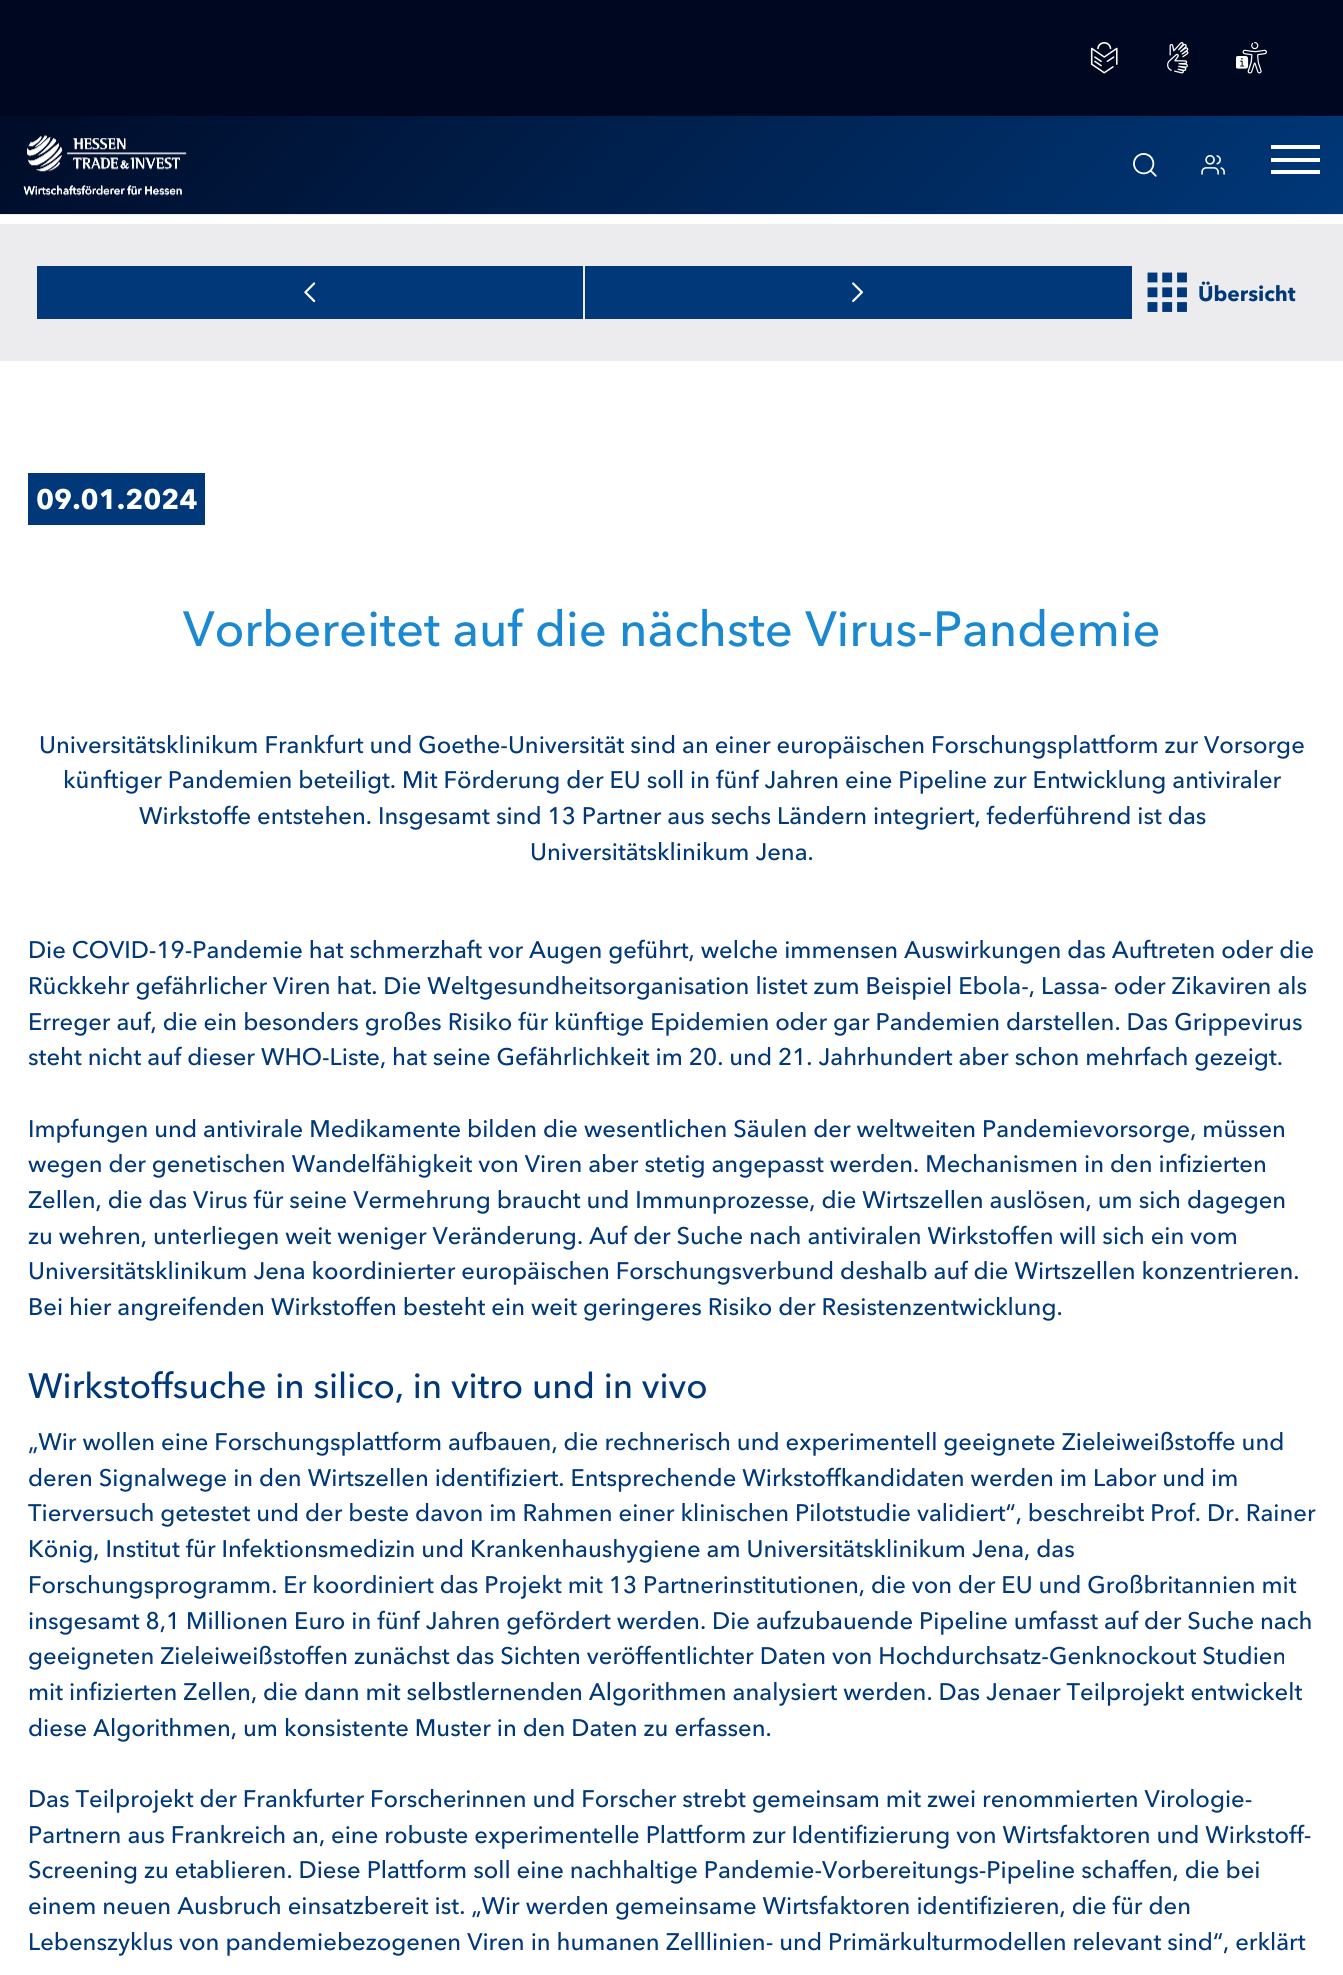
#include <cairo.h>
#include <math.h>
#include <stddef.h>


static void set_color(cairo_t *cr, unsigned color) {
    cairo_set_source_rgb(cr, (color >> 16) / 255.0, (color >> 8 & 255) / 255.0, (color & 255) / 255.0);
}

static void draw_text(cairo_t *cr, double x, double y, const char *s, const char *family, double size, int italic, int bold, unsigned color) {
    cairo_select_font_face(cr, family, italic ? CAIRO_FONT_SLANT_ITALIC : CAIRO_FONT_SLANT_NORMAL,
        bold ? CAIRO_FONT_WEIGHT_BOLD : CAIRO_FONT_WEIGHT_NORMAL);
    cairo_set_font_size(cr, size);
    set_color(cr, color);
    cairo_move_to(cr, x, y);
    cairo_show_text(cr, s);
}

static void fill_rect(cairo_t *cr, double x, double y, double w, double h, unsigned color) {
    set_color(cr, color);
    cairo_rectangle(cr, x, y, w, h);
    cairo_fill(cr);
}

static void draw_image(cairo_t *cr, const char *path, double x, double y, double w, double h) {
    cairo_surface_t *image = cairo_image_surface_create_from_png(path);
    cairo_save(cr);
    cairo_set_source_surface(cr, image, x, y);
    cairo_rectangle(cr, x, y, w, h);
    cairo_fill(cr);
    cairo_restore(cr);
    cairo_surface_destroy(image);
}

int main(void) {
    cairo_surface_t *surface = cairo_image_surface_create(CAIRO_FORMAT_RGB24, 1343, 1975);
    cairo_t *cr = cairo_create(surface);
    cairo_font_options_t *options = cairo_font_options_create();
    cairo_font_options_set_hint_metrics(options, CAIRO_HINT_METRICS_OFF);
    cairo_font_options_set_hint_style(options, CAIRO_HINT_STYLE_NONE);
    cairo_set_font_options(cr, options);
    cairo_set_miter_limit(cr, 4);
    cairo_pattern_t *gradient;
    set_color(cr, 0xFFFFFF);
    cairo_paint(cr);
    fill_rect(cr, 0, 214, 1343, 1, 0xECECEF);
    gradient = cairo_pattern_create_linear(283, -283, 1061, 496);
    cairo_pattern_add_color_stop_rgba(gradient, 0, 0, 0.031, 0.129, 1);
    cairo_pattern_add_color_stop_rgba(gradient, 1, 0, 0.22, 0.475, 1);
    cairo_set_source(cr, gradient);
    cairo_pattern_destroy(gradient);
    cairo_rectangle(cr, 0, 116, 1343, 98);
    cairo_fill(cr);
    fill_rect(cr, 0, 0, 1343, 116, 0x000821);
    draw_image(cr, "assets/img1.png", 1090, 42, 28, 32);
    draw_image(cr, "assets/img2.png", 1167, 42, 22, 32);
    draw_image(cr, "assets/img3.png", 1236, 42, 31, 32);
    draw_image(cr, "assets/img4.png", 23, 135, 164, 61);
    draw_image(cr, "assets/img5.png", 1133, 153, 24, 24);
    draw_image(cr, "assets/img6.png", 1201, 155, 24, 20);
    fill_rect(cr, 1271, 145, 49, 4, 0xFFFFFF);
    fill_rect(cr, 1271, 158, 49, 4, 0xFFFFFF);
    fill_rect(cr, 1271, 170, 49, 4, 0xFFFFFF);
    fill_rect(cr, 0, 224, 1343, 137, 0xECECEF);
    fill_rect(cr, 37, 266, 546, 53, 0x003879);
    draw_image(cr, "assets/img7.png", 304, 282, 12, 21);
    fill_rect(cr, 585, 266, 547, 53, 0x003879);
    draw_image(cr, "assets/img8.png", 852, 282, 11, 21);
    draw_image(cr, "assets/img9.png", 1147, 272, 40, 40);
    draw_text(cr, 1198, 301, "Übersicht", "Avenir Next", 21, 0, 1, 0x003879);
    fill_rect(cr, 28, 473, 177, 52, 0x003879);
    draw_text(cr, 36, 509, "09.01.2024", "Avenir Next", 28, 0, 1, 0xFFFFFF);
    draw_text(cr, 183, 646, "Vorbereitet auf die nächste Virus-Pandemie", "Avenir Next Medium", 49, 0, 0, 0x1A89D2);
    draw_text(cr, 39, 753, "Universitätsklinikum Frankfurt und Goethe-Universität sind an einer europäischen Forschungsplattform zur Vorsorge", "Avenir Next Medium", 23.8, 0, 0, 0x003879);
    draw_text(cr, 63, 788, "künftiger Pandemien beteiligt. Mit Förderung der EU soll in fünf Jahren eine Pipeline zur Entwicklung antiviraler", "Avenir Next Medium", 23.8, 0, 0, 0x003879);
    draw_text(cr, 139, 824, "Wirkstoffe entstehen. Insgesamt sind 13 Partner aus sechs Ländern integriert, federführend ist das", "Avenir Next Medium", 23.8, 0, 0, 0x003879);
    draw_text(cr, 530, 860, "Universitätsklinikum Jena.", "Avenir Next Medium", 23.8, 0, 0, 0x003879);
    draw_text(cr, 28, 958, "Die COVID-19-Pandemie hat schmerzhaft vor Augen geführt, welche immensen Auswirkungen das Auftreten oder die", "Avenir Next Medium", 23.8, 0, 0, 0x003879);
    draw_text(cr, 28, 994, "Rückkehr gefährlicher Viren hat. Die Weltgesundheitsorganisation listet zum Beispiel Ebola-, Lassa- oder Zikaviren als", "Avenir Next Medium", 23.8, 0, 0, 0x003879);
    draw_text(cr, 28, 1030, "Erreger auf, die ein besonders großes Risiko für künftige Epidemien oder gar Pandemien darstellen. Das Grippevirus", "Avenir Next Medium", 23.8, 0, 0, 0x003879);
    draw_text(cr, 28, 1065, "steht nicht auf dieser WHO-Liste, hat seine Gefährlichkeit im 20. und 21. Jahrhundert aber schon mehrfach gezeigt.", "Avenir Next Medium", 23.8, 0, 0, 0x003879);
    draw_text(cr, 28, 1137, "Impfungen und antivirale Medikamente bilden die wesentlichen Säulen der weltweiten Pandemievorsorge, müssen", "Avenir Next Medium", 23.8, 0, 0, 0x003879);
    draw_text(cr, 28, 1172, "wegen der genetischen Wandelfähigkeit von Viren aber stetig angepasst werden. Mechanismen in den infizierten", "Avenir Next Medium", 23.8, 0, 0, 0x003879);
    draw_text(cr, 28, 1208, "Zellen, die das Virus für seine Vermehrung braucht und Immunprozesse, die Wirtszellen auslösen, um sich dagegen", "Avenir Next Medium", 23.8, 0, 0, 0x003879);
    draw_text(cr, 28, 1244, "zu wehren, unterliegen weit weniger Veränderung. Auf der Suche nach antiviralen Wirkstoffen will sich ein vom", "Avenir Next Medium", 23.8, 0, 0, 0x003879);
    draw_text(cr, 28, 1279, "Universitätsklinikum Jena koordinierter europäischen Forschungsverbund deshalb auf die Wirtszellen konzentrieren.", "Avenir Next Medium", 23.8, 0, 0, 0x003879);
    draw_text(cr, 28, 1315, "Bei hier angreifenden Wirkstoffen besteht ein weit geringeres Risiko der Resistenzentwicklung.", "Avenir Next Medium", 23.8, 0, 0, 0x003879);
    draw_text(cr, 28, 1398, "Wirkstoffsuche in silico, in vitro und in vivo", "Avenir Next Medium", 35, 0, 0, 0x003879);
    draw_text(cr, 28, 1450, "„Wir wollen eine Forschungsplattform aufbauen, die rechnerisch und experimentell geeignete Zieleiweißstoffe und", "Avenir Next Medium", 23.8, 0, 0, 0x003879);
    draw_text(cr, 28, 1486, "deren Signalwege in den Wirtszellen identifiziert. Entsprechende Wirkstoffkandidaten werden im Labor und im", "Avenir Next Medium", 23.8, 0, 0, 0x003879);
    draw_text(cr, 28, 1521, "Tierversuch getestet und der beste davon im Rahmen einer klinischen Pilotstudie validiert“, beschreibt Prof. Dr. Rainer", "Avenir Next Medium", 23.8, 0, 0, 0x003879);
    draw_text(cr, 28, 1557, "König, Institut für Infektionsmedizin und Krankenhaushygiene am Universitätsklinikum Jena, das", "Avenir Next Medium", 23.8, 0, 0, 0x003879);
    draw_text(cr, 28, 1593, "Forschungsprogramm. Er koordiniert das Projekt mit 13 Partnerinstitutionen, die von der EU und Großbritannien mit", "Avenir Next Medium", 23.8, 0, 0, 0x003879);
    draw_text(cr, 28, 1629, "insgesamt 8,1 Millionen Euro in fünf Jahren gefördert werden. Die aufzubauende Pipeline umfasst auf der Suche nach", "Avenir Next Medium", 23.8, 0, 0, 0x003879);
    draw_text(cr, 28, 1664, "geeigneten Zieleiweißstoffen zunächst das Sichten veröffentlichter Daten von Hochdurchsatz-Genknockout Studien", "Avenir Next Medium", 23.8, 0, 0, 0x003879);
    draw_text(cr, 28, 1700, "mit infizierten Zellen, die dann mit selbstlernenden Algorithmen analysiert werden. Das Jenaer Teilprojekt entwickelt", "Avenir Next Medium", 23.8, 0, 0, 0x003879);
    draw_text(cr, 28, 1736, "diese Algorithmen, um konsistente Muster in den Daten zu erfassen.", "Avenir Next Medium", 23.8, 0, 0, 0x003879);
    draw_text(cr, 28, 1807, "Das Teilprojekt der Frankfurter Forscherinnen und Forscher strebt gemeinsam mit zwei renommierten Virologie-", "Avenir Next Medium", 23.8, 0, 0, 0x003879);
    draw_text(cr, 28, 1843, "Partnern aus Frankreich an, eine robuste experimentelle Plattform zur Identifizierung von Wirtsfaktoren und Wirkstoff-", "Avenir Next Medium", 23.8, 0, 0, 0x003879);
    draw_text(cr, 28, 1878, "Screening zu etablieren. Diese Plattform soll eine nachhaltige Pandemie-Vorbereitungs-Pipeline schaffen, die bei", "Avenir Next Medium", 23.8, 0, 0, 0x003879);
    draw_text(cr, 28, 1914, "einem neuen Ausbruch einsatzbereit ist. „Wir werden gemeinsame Wirtsfaktoren identifizieren, die für den", "Avenir Next Medium", 23.8, 0, 0, 0x003879);
    draw_text(cr, 28, 1950, "Lebenszyklus von pandemiebezogenen Viren in humanen Zelllinien- und Primärkulturmodellen relevant sind“, erklärt", "Avenir Next Medium", 23.8, 0, 0, 0x003879);
    cairo_surface_write_to_png(surface, "output.png");
    cairo_font_options_destroy(options);
    cairo_destroy(cr);
    cairo_surface_destroy(surface);
    return 0;
}
